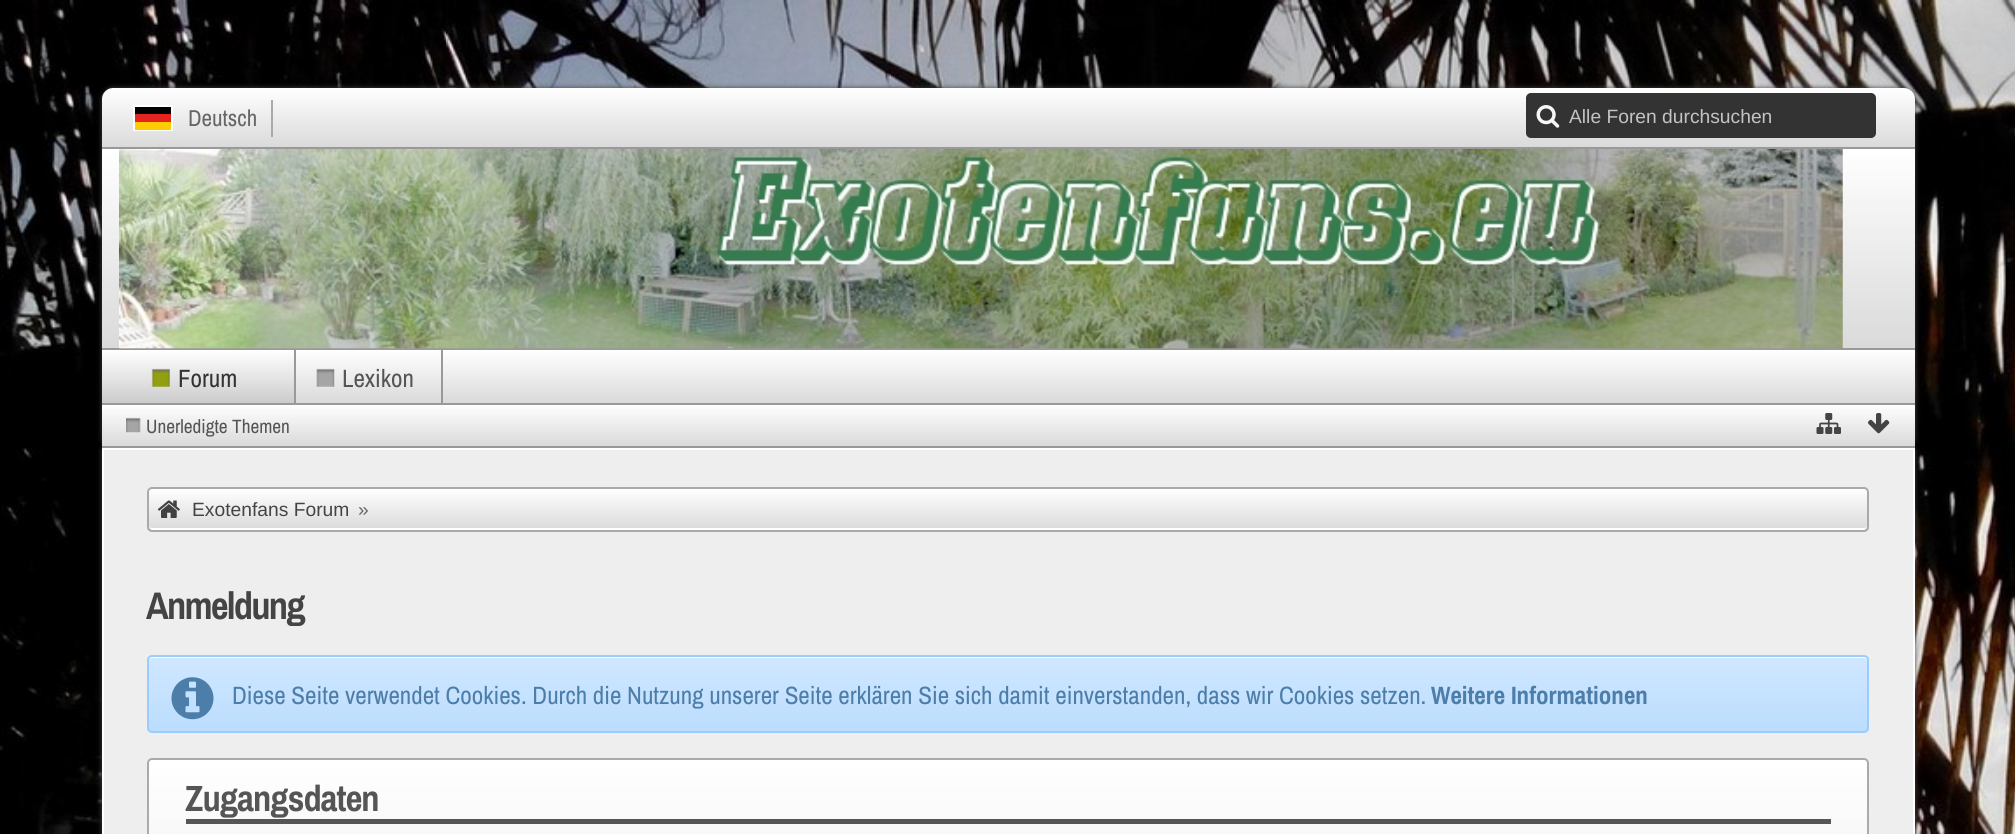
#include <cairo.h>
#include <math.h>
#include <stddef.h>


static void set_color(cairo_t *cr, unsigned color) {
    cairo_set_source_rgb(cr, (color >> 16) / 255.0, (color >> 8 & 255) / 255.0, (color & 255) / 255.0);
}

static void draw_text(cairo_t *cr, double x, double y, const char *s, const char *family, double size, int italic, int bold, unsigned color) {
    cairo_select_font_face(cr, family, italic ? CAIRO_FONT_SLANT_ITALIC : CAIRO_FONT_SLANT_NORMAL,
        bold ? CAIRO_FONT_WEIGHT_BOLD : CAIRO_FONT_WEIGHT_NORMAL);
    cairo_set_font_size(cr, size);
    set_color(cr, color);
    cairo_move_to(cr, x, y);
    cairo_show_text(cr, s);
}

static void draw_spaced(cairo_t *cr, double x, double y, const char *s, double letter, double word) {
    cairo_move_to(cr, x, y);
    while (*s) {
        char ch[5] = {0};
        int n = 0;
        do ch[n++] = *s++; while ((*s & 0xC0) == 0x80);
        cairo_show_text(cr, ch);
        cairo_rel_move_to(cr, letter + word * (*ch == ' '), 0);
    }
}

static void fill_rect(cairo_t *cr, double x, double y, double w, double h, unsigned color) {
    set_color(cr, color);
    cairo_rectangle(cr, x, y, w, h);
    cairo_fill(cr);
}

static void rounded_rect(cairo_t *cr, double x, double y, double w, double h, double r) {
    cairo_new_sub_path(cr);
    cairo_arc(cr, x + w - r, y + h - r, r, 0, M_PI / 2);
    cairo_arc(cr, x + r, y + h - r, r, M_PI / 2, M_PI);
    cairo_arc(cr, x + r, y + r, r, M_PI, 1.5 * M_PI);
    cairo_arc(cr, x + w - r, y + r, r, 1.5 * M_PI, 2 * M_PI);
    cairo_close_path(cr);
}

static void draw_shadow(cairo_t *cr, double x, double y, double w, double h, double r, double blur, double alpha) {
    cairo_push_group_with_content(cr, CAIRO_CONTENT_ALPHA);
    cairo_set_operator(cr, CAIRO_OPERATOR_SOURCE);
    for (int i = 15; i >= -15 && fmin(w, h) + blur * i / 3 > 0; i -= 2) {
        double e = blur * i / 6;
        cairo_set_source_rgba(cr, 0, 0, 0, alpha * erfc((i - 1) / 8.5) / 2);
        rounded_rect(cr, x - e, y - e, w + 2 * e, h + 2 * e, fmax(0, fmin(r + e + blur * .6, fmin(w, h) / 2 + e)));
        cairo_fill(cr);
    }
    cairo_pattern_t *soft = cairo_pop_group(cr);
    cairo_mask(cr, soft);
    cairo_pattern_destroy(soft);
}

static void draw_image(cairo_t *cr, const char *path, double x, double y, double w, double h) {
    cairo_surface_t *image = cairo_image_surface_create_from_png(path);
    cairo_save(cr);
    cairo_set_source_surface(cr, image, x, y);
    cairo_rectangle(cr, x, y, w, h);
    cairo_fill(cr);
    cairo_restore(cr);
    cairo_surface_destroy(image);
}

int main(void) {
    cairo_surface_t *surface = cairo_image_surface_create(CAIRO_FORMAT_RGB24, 2015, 834);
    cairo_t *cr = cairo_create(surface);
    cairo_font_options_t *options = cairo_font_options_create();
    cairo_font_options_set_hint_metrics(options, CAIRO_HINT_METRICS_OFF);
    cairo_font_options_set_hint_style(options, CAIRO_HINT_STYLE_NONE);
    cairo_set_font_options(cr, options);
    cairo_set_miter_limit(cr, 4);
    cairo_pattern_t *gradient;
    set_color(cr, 0xFFFFFF);
    cairo_paint(cr);
    draw_image(cr, "assets/img1.png", 0, 0, 2015, 834);
    set_color(cr, 0x444444);
    draw_shadow(cr, 102, 88, 1813, 360, 11, 2.5, 1);
    gradient = cairo_pattern_create_linear(1008, 147, 1008, 88);
    cairo_pattern_add_color_stop_rgba(gradient, 0, 0.855, 0.855, 0.855, 1);
    cairo_pattern_add_color_stop_rgba(gradient, 1, 1, 1, 1, 1);
    cairo_set_source(cr, gradient);
    cairo_pattern_destroy(gradient);
    cairo_new_path(cr);
    cairo_move_to(cr, 113, 88);
    cairo_line_to(cr, 1904, 88);
    cairo_curve_to(cr, 1910, 88, 1915, 93, 1915, 99);
    cairo_line_to(cr, 1915, 147);
    cairo_line_to(cr, 102, 147);
    cairo_line_to(cr, 102, 99);
    cairo_curve_to(cr, 102, 93, 107, 88, 113, 88);
    cairo_close_path(cr);
    cairo_fill(cr);
    fill_rect(cr, 102, 147, 1813, 2, 0x999999);
    fill_rect(cr, 271, 100, 2, 37, 0xAAAAAA);
    fill_rect(cr, 133, 105, 40, 26, 0xFFFFFF);
    fill_rect(cr, 135, 107, 36, 7, 0x010202);
    fill_rect(cr, 135, 114, 36, 8, 0xE52420);
    fill_rect(cr, 135, 122, 36, 8, 0xFFCC04);
    draw_text(cr, 188, 126, "Deutsch", "Archivo Narrow", 23, 0, 0, 0x666666);
    set_color(cr, 0x333333);
    rounded_rect(cr, 1526, 93, 350, 45, 5);
    cairo_fill(cr);
    draw_image(cr, "assets/img2.png", 1536, 105, 24, 23);
    draw_text(cr, 1569, 123, "Alle Foren durchsuchen", "Liberation Sans", 19.25, 0, 0, 0xC3C3C3);
    gradient = cairo_pattern_create_linear(1008, 348, 1008, 149);
    cairo_pattern_add_color_stop_rgba(gradient, 0, 0.855, 0.855, 0.855, 1);
    cairo_pattern_add_color_stop_rgba(gradient, 1, 1, 1, 1, 1);
    cairo_set_source(cr, gradient);
    cairo_pattern_destroy(gradient);
    cairo_rectangle(cr, 102, 149, 1813, 199);
    cairo_fill(cr);
    fill_rect(cr, 102, 348, 1813, 2, 0x999999);
    draw_image(cr, "assets/img3.png", 119, 149, 1724, 200);
    gradient = cairo_pattern_create_linear(1008, 403, 1008, 350);
    cairo_pattern_add_color_stop_rgba(gradient, 0, 0.855, 0.855, 0.855, 1);
    cairo_pattern_add_color_stop_rgba(gradient, 1, 1, 1, 1, 1);
    cairo_set_source(cr, gradient);
    cairo_pattern_destroy(gradient);
    cairo_rectangle(cr, 296, 350, 1619, 53);
    cairo_fill(cr);
    gradient = cairo_pattern_create_linear(198, 403, 198, 350);
    cairo_pattern_add_color_stop_rgba(gradient, 0, 0.8, 0.8, 0.8, 1);
    cairo_pattern_add_color_stop_rgba(gradient, 1, 1, 1, 1, 1);
    cairo_set_source(cr, gradient);
    cairo_pattern_destroy(gradient);
    cairo_rectangle(cr, 102, 350, 192, 53);
    cairo_fill(cr);
    fill_rect(cr, 294, 350, 2, 53, 0x999999);
    draw_image(cr, "assets/img4.png", 151, 368, 19, 19);
    draw_text(cr, 178, 387, "Forum", "Archivo Narrow", 25.05, 0, 0, 0x333333);
    fill_rect(cr, 441, 350, 2, 53, 0x999999);
    draw_image(cr, "assets/img5.png", 316, 368, 19, 19);
    draw_text(cr, 342, 387, "Lexikon", "Archivo Narrow", 25.05, 0, 0, 0x555555);
    set_color(cr, 0x444444);
    draw_shadow(cr, 102, 450, 1813, 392, 0, 2.5, 1);
    gradient = cairo_pattern_create_linear(1008, 446, 1008, 404);
    cairo_pattern_add_color_stop_rgba(gradient, 0, 0.855, 0.855, 0.855, 1);
    cairo_pattern_add_color_stop_rgba(gradient, 1, 1, 1, 1, 1);
    cairo_set_source(cr, gradient);
    cairo_pattern_destroy(gradient);
    cairo_rectangle(cr, 102, 405, 1813, 41);
    cairo_fill(cr);
    fill_rect(cr, 102, 403, 1813, 2, 0x999999);
    fill_rect(cr, 102, 446, 1813, 2, 0x999999);
    draw_image(cr, "assets/img6.png", 126, 417, 15, 16);
    draw_text(cr, 146, 433, "Unerledigte Themen", "Archivo Narrow", 19.25, 0, 0, 0x555555);
    draw_image(cr, "assets/img7.png", 1816, 413, 25, 21);
    draw_image(cr, "assets/img8.png", 1868, 413, 22, 21);
    set_color(cr, 0xEEEEEE);
    cairo_rectangle(cr, 103, 449, 1811, 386);
    cairo_fill_preserve(cr);
    set_color(cr, 0xFFFFFF);
    cairo_stroke(cr);
    cairo_save(cr);
    rounded_rect(cr, 147, 487, 1722, 45, 5);
    cairo_clip(cr);
    gradient = cairo_pattern_create_linear(1008, 530, 1008, 488);
    cairo_pattern_add_color_stop_rgba(gradient, 0, 0.855, 0.855, 0.855, 1);
    cairo_pattern_add_color_stop_rgba(gradient, 1, 1, 1, 1, 1);
    cairo_set_source(cr, gradient);
    cairo_pattern_destroy(gradient);
    cairo_rectangle(cr, 147, 488, 1722, 42);
    cairo_fill(cr);
    cairo_restore(cr);
    cairo_new_path(cr);
    cairo_move_to(cr, 149, 525);
    cairo_line_to(cr, 149, 526);
    cairo_curve_to(cr, 149, 528, 151, 530, 153, 530);
    cairo_line_to(cr, 1863, 530);
    cairo_curve_to(cr, 1865, 530, 1867, 528, 1867, 526);
    cairo_line_to(cr, 1867, 525);
    cairo_curve_to(cr, 1867, 527, 1866, 528, 1864, 528);
    cairo_line_to(cr, 152, 528);
    cairo_curve_to(cr, 150, 528, 149, 527, 149, 525);
    cairo_close_path(cr);
    cairo_fill(cr);
    rounded_rect(cr, 148, 488, 1720, 43, 4);
    set_color(cr, 0xAAAAAA);
    cairo_stroke(cr);
    draw_image(cr, "assets/img9.png", 157, 500, 23, 18);
    draw_text(cr, 192, 516, "Exotenfans Forum", "Liberation Sans", 19.25, 0, 0, 0x444444);
    draw_text(cr, 358, 516, "»", "Liberation Sans", 19.25, 0, 0, 0x666666);
    cairo_select_font_face(cr, "Archivo Narrow", CAIRO_FONT_SLANT_NORMAL, CAIRO_FONT_WEIGHT_BOLD);
    cairo_set_font_size(cr, 38.5);
    set_color(cr, 0x444444);
    draw_spaced(cr, 146, 619, "Anmeldung", -1.75, 0);
    cairo_save(cr);
    rounded_rect(cr, 147, 655, 1722, 78, 5);
    cairo_clip(cr);
    gradient = cairo_pattern_create_linear(1008, 732, 1008, 656);
    cairo_pattern_add_color_stop_rgba(gradient, 0, 0.733, 0.867, 0.996, 1);
    cairo_pattern_add_color_stop_rgba(gradient, 1, 0.816, 0.906, 1, 1);
    cairo_set_source(cr, gradient);
    cairo_pattern_destroy(gradient);
    cairo_rectangle(cr, 147, 656, 1722, 76);
    cairo_fill(cr);
    cairo_restore(cr);
    set_color(cr, 0xFFFFFF);
    cairo_new_path(cr);
    cairo_move_to(cr, 152, 658);
    cairo_line_to(cr, 1864, 658);
    cairo_curve_to(cr, 1866, 658, 1867, 660, 1867, 662);
    cairo_curve_to(cr, 1867, 659, 1867, 656, 1863, 656);
    cairo_line_to(cr, 153, 656);
    cairo_curve_to(cr, 149, 656, 149, 659, 149, 662);
    cairo_curve_to(cr, 149, 660, 150, 658, 152, 658);
    cairo_close_path(cr);
    cairo_fill(cr);
    rounded_rect(cr, 148, 656, 1720, 76, 4);
    set_color(cr, 0x9ACDFF);
    cairo_stroke(cr);
    draw_image(cr, "assets/img10.png", 171, 677, 43, 43);
    draw_text(cr, 232, 704, "Diese Seite verwendet Cookies. Durch die Nutzung unserer Seite erklären Sie sich damit einverstanden, dass wir Cookies setzen.", "Archivo Narrow", 25.05, 0, 0, 0x4D7DA9);
    draw_text(cr, 1431, 704, "Weitere Informationen", "Archivo Narrow", 25.05, 0, 1, 0x4D7DA9);
    cairo_save(cr);
    rounded_rect(cr, 147, 758, 1722, 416, 5);
    cairo_clip(cr);
    gradient = cairo_pattern_create_linear(1008, 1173, 1008, 760);
    cairo_pattern_add_color_stop_rgba(gradient, 0, 0.855, 0.855, 0.855, 1);
    cairo_pattern_add_color_stop_rgba(gradient, 1, 1, 1, 1, 1);
    cairo_set_source(cr, gradient);
    cairo_pattern_destroy(gradient);
    cairo_rectangle(cr, 147, 760, 1722, 74);
    cairo_fill(cr);
    cairo_restore(cr);
    rounded_rect(cr, 148, 759, 1720, 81, 4);
    set_color(cr, 0xAAAAAA);
    cairo_stroke(cr);
    fill_rect(cr, 186, 819, 1645, 5, 0x565656);
    cairo_set_font_size(cr, 36.5);
    set_color(cr, 0x555555);
    draw_spaced(cr, 185, 811, "Zugangsdaten", -0.9, 0);
    cairo_surface_write_to_png(surface, "output.png");
    cairo_font_options_destroy(options);
    cairo_destroy(cr);
    cairo_surface_destroy(surface);
    return 0;
}
